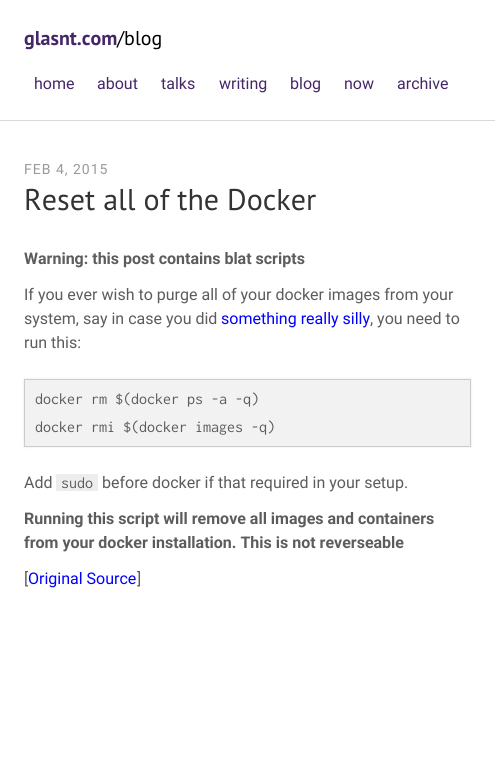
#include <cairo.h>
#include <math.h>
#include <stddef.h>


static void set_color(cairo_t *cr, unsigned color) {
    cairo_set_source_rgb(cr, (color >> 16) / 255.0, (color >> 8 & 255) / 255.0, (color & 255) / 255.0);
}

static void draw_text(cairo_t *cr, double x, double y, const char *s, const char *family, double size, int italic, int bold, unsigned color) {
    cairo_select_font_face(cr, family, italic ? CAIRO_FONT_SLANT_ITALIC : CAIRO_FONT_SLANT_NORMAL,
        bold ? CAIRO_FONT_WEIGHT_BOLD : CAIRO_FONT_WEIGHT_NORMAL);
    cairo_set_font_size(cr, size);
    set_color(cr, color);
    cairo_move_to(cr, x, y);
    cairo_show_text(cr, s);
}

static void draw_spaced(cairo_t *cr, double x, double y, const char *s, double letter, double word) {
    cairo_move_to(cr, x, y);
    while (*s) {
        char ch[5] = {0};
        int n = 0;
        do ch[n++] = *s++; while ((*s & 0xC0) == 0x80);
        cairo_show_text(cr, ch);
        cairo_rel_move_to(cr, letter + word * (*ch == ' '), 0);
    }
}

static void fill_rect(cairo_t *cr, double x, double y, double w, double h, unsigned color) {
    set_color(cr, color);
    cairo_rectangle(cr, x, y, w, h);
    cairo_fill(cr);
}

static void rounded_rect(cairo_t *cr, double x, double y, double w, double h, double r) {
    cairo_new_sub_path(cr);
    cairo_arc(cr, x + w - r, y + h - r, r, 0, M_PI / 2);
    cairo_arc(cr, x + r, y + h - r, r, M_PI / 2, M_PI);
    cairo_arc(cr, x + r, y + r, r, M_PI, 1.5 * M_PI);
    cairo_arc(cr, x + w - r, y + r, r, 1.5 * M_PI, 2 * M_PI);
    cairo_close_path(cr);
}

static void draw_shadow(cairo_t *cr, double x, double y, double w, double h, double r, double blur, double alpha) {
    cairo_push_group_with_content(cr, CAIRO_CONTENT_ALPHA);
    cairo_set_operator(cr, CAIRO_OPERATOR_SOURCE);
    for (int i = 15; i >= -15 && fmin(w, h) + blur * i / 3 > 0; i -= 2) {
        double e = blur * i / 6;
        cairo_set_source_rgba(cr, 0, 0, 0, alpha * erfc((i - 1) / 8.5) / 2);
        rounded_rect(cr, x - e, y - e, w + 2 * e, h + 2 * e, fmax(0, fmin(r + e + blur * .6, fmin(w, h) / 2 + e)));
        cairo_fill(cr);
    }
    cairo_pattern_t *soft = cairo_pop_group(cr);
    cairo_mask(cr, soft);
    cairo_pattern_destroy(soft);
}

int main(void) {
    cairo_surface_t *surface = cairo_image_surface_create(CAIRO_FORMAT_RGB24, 495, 774);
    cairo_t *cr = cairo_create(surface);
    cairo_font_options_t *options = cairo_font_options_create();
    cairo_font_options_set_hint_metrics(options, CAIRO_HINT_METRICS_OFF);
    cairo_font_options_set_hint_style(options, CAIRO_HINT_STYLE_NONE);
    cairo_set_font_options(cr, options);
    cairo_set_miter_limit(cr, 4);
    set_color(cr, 0xFFFFFF);
    cairo_paint(cr);
    fill_rect(cr, 0, 120, 495, 1, 0xD9D9D9);
    draw_text(cr, 24, 45, "glasnt.com", "PT Sans", 20, 0, 1, 0x452768);
    draw_text(cr, 117, 45, "/blog", "PT Sans", 20, 0, 0, 0x000000);
    draw_text(cr, 34, 89, "home", "Roboto", 16, 0, 0, 0x452768);
    draw_text(cr, 97, 89, "about", "Roboto", 16, 0, 0, 0x452768);
    draw_text(cr, 161, 89, "talks", "Roboto", 16, 0, 0, 0x452768);
    draw_text(cr, 219, 89, "writing", "Roboto", 16, 0, 0, 0x452768);
    draw_text(cr, 290, 89, "blog", "Roboto", 16, 0, 0, 0x452768);
    draw_text(cr, 344, 89, "now", "Roboto", 16, 0, 0, 0x452768);
    draw_text(cr, 397, 89, "archive", "Roboto", 16, 0, 0, 0x452768);
    cairo_set_font_size(cr, 14);
    set_color(cr, 0x999999);
    draw_spaced(cr, 24, 174, "FEB 4, 2015", 1, 0);
    draw_text(cr, 24, 210, "Reset all of the Docker", "PT Sans", 30, 0, 0, 0x333333);
    draw_text(cr, 24, 264, "Warning: this post contains blat scripts", "Roboto", 16, 0, 1, 0x5C5C5C);
    draw_text(cr, 24, 300, "If you ever wish to purge all of your docker images from your", "Roboto", 16, 0, 0, 0x5C5C5C);
    draw_text(cr, 24, 324, "system, say in case you did", "Roboto", 16, 0, 0, 0x5C5C5C);
    draw_text(cr, 221, 324, "something really silly", "Roboto", 16, 0, 0, 0x0000FF);
    draw_text(cr, 370, 324, ", you need to", "Roboto", 16, 0, 0, 0x5C5C5C);
    draw_text(cr, 24, 348, "run this:", "Roboto", 16, 0, 0, 0x5C5C5C);
    set_color(cr, 0x000000);
    draw_shadow(cr, 24, 379, 447, 68, 0, 1, 0.1);
    set_color(cr, 0xF2F2F2);
    cairo_rectangle(cr, 24.5, 379.5, 446, 67);
    cairo_fill_preserve(cr);
    set_color(cr, 0xCCCCCC);
    cairo_set_line_width(cr, 1);
    cairo_stroke(cr);
    draw_text(cr, 35, 404, "docker rm $(docker ps -a -q)", "Inconsolata", 16, 0, 0, 0x5C5C5C);
    draw_text(cr, 35, 432, "docker rmi $(docker images -q)", "Inconsolata", 16, 0, 0, 0x5C5C5C);
    draw_text(cr, 24, 488, "Add", "Roboto", 16, 0, 0, 0x5C5C5C);
    fill_rect(cr, 56, 474, 42, 17, 0xEDEDED);
    draw_text(cr, 61, 488, "sudo", "Inconsolata", 16, 0, 0, 0x5C5C5C);
    draw_text(cr, 102, 488, "before docker if that required in your setup.", "Roboto", 16, 0, 0, 0x5C5C5C);
    draw_text(cr, 24, 524, "Running this script will remove all images and containers", "Roboto", 16, 0, 1, 0x5C5C5C);
    draw_text(cr, 24, 548, "from your docker installation. This is not reverseable", "Roboto", 16, 0, 1, 0x5C5C5C);
    draw_text(cr, 24, 584, "[", "Roboto", 16, 0, 0, 0x5C5C5C);
    draw_text(cr, 28, 584, "Original Source", "Roboto", 16, 0, 0, 0x0000FF);
    draw_text(cr, 137, 584, "]", "Roboto", 16, 0, 0, 0x5C5C5C);
    cairo_surface_write_to_png(surface, "output.png");
    cairo_font_options_destroy(options);
    cairo_destroy(cr);
    cairo_surface_destroy(surface);
    return 0;
}
